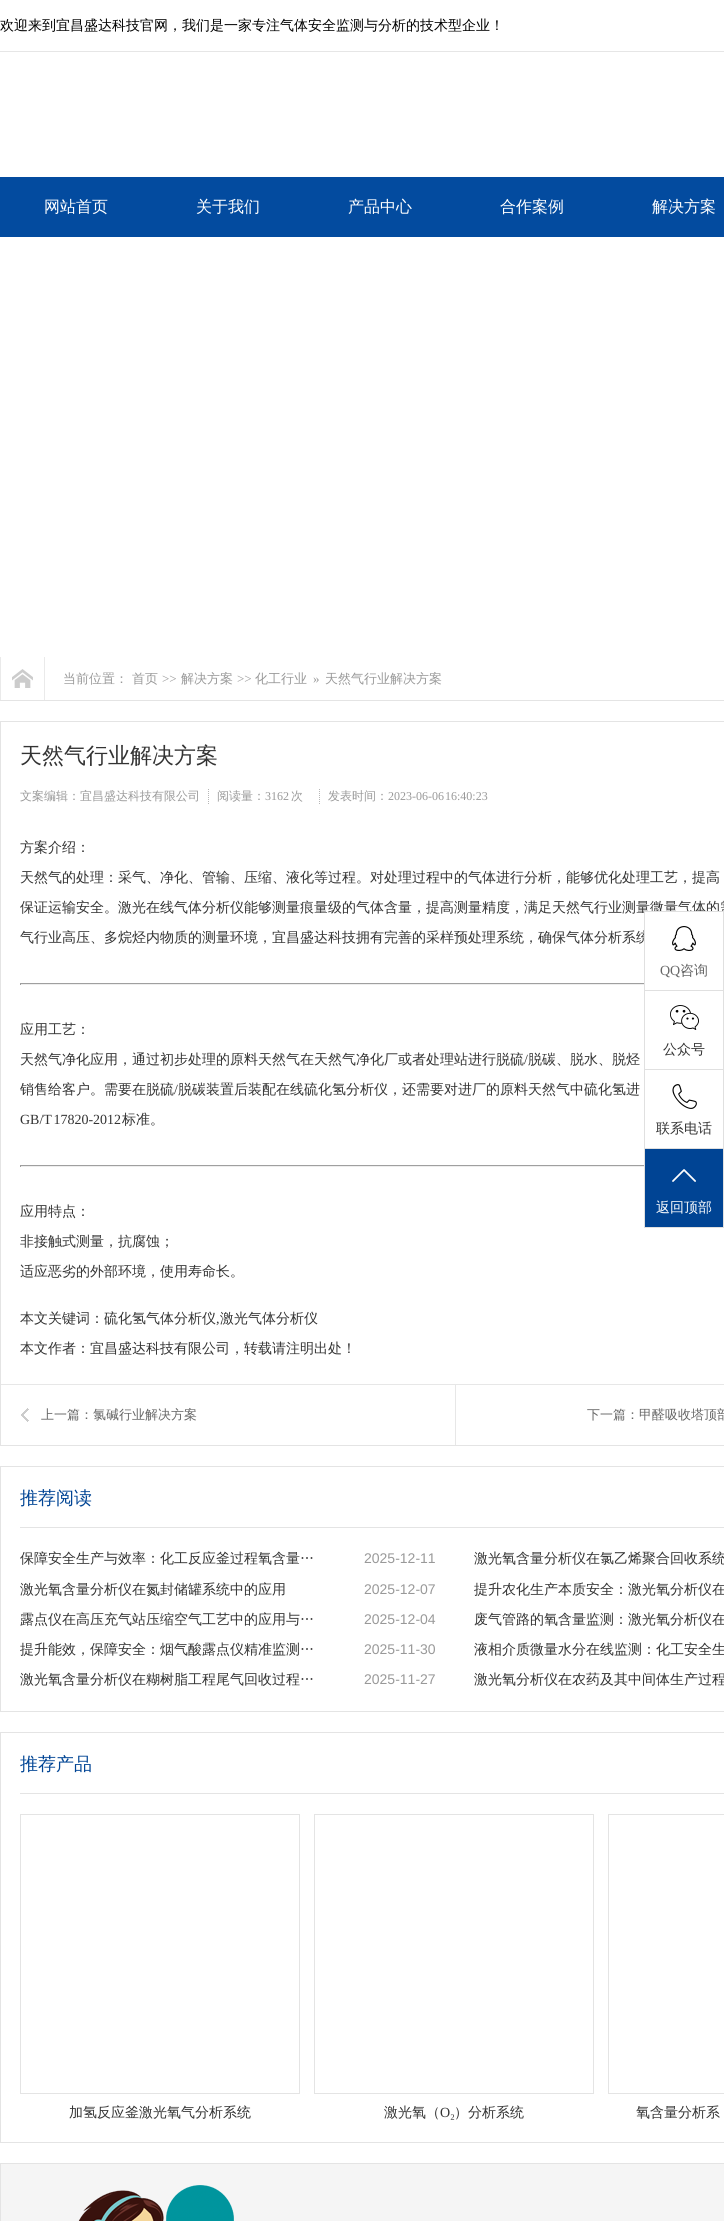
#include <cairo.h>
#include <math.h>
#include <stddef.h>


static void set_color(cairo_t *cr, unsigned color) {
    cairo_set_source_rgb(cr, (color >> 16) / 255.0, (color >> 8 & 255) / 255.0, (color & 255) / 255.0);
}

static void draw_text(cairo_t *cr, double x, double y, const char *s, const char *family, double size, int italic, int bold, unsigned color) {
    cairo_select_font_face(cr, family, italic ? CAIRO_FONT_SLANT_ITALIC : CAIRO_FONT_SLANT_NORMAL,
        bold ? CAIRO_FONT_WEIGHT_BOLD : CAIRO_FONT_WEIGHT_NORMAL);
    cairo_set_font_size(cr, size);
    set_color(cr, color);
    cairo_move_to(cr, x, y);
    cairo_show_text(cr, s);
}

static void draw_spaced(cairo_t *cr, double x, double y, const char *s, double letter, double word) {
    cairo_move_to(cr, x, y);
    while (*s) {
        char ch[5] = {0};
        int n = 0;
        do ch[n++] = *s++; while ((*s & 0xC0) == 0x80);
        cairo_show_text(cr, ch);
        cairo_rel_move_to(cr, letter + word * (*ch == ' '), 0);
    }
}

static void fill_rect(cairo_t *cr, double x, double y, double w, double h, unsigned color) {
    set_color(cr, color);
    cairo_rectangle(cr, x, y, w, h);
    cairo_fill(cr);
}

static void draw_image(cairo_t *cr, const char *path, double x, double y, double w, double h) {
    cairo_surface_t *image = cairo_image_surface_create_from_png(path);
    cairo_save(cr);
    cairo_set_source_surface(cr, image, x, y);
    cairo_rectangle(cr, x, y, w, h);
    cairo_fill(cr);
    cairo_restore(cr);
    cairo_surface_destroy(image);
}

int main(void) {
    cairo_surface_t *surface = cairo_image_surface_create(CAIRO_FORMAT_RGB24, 724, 2221);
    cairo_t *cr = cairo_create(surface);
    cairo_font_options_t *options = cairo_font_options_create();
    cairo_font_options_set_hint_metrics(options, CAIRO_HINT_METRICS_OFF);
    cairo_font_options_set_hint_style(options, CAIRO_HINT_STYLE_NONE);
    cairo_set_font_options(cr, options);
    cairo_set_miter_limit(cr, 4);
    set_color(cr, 0xFFFFFF);
    cairo_paint(cr);
    fill_rect(cr, 0, 51, 724, 1, 0xE6E6E6);
    draw_text(cr, 0, 30, "欢迎来到宜昌盛达科技官网，我们是一家专注气体安全监测与分析的技术型企业！", "WenQuanYi Zen Hei Medium", 14, 0, 0, 0x000000);
    fill_rect(cr, 0, 177, 724, 60, 0x034B9F);
    draw_text(cr, 44, 212, "网站首页", "WenQuanYi Zen Hei Medium", 16, 0, 0, 0xFFFFFF);
    draw_text(cr, 196, 212, "关于我们", "WenQuanYi Zen Hei Medium", 16, 0, 0, 0xFFFFFF);
    draw_text(cr, 348, 212, "产品中心", "WenQuanYi Zen Hei Medium", 16, 0, 0, 0xFFFFFF);
    draw_text(cr, 500, 212, "合作案例", "WenQuanYi Zen Hei Medium", 16, 0, 0, 0xFFFFFF);
    draw_text(cr, 652, 212, "解决方案", "WenQuanYi Zen Hei Medium", 16, 0, 0, 0xFFFFFF);
    fill_rect(cr, 0, 700, 724, 1, 0xE4E4E4);
    draw_image(cr, "assets/img1.png", 12, 669, 21, 19);
    fill_rect(cr, 44, 657, 1, 43, 0xEAEAEA);
    fill_rect(cr, 0, 657, 1, 43, 0xEAEAEA);
    draw_text(cr, 63, 683, "当前位置： 首页", "WenQuanYi Zen Hei Medium", 13, 0, 0, 0x999999);
    draw_text(cr, 162, 683, ">>", "Liberation Serif", 13, 0, 0, 0x999999);
    draw_text(cr, 181, 683, "解决方案", "WenQuanYi Zen Hei Medium", 13, 0, 0, 0x999999);
    draw_text(cr, 237, 683, ">>", "Liberation Serif", 13, 0, 0, 0x999999);
    draw_text(cr, 255, 683, "化工行业", "WenQuanYi Zen Hei Medium", 13, 0, 0, 0x999999);
    draw_text(cr, 313, 683, "»", "Liberation Serif", 13, 0, 0, 0x999999);
    draw_text(cr, 325, 683, "天然气行业解决方案", "WenQuanYi Zen Hei Medium", 13, 0, 0, 0x999999);
    cairo_rectangle(cr, 0.5, 721.5, 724, 724);
    set_color(cr, 0xE4E4E4);
    cairo_set_line_width(cr, 1);
    cairo_stroke(cr);
    draw_text(cr, 20, 763, "天然气行业解决方案", "WenQuanYi Zen Hei Medium", 22, 0, 0, 0x333333);
    draw_text(cr, 20, 800, "文案编辑：宜昌盛达科技有限公司", "WenQuanYi Zen Hei Medium", 12, 0, 0, 0x999999);
    cairo_new_path(cr);
    cairo_move_to(cr, 208.5, 789);
    cairo_line_to(cr, 208.5, 804);
    set_color(cr, 0xB6B6B6);
    cairo_set_dash(cr, (double[]){1, 1}, 2, 0);
    cairo_stroke(cr);
    draw_text(cr, 217, 800, "阅读量：", "WenQuanYi Zen Hei Medium", 12, 0, 0, 0x999999);
    draw_text(cr, 265, 800, "3162", "Liberation Serif", 12, 0, 0, 0x999999);
    draw_text(cr, 291, 800, "次", "WenQuanYi Zen Hei Medium", 12, 0, 0, 0x999999);
    cairo_new_path(cr);
    cairo_move_to(cr, 319.5, 789);
    cairo_line_to(cr, 319.5, 804);
    set_color(cr, 0xB6B6B6);
    cairo_stroke(cr);
    draw_text(cr, 328, 800, "发表时间：", "WenQuanYi Zen Hei Medium", 12, 0, 0, 0x999999);
    cairo_select_font_face(cr, "Liberation Serif", CAIRO_FONT_SLANT_NORMAL, CAIRO_FONT_WEIGHT_NORMAL);
    draw_spaced(cr, 388, 800, "2023-06-06 16:40:23", 0, -2);
    draw_text(cr, 20, 852, "方案介绍：", "WenQuanYi Zen Hei Medium", 14, 0, 0, 0x333333);
    draw_text(cr, 20, 882, "天然气的处理：采气、净化、管输、压缩、液化等过程。对处理过程中的气体进行分析，能够优化处理工艺，提高", "WenQuanYi Zen Hei Medium", 14, 0, 0, 0x333333);
    draw_text(cr, 20, 912, "保证运输安全。激光在线气体分析仪能够测量痕量级的气体含量，提高测量精度，满足天然气行业测量微量气体的需", "WenQuanYi Zen Hei Medium", 14, 0, 0, 0x333333);
    draw_text(cr, 20, 942, "气行业高压、多烷烃内物质的测量环境，宜昌盛达科技拥有完善的采样预处理系统，确保气体分析系统", "WenQuanYi Zen Hei Medium", 14, 0, 0, 0x333333);
    fill_rect(cr, 20, 983, 624, 1, 0x9F9F9F);
    fill_rect(cr, 20, 984, 624, 1, 0xEEEEEE);
    fill_rect(cr, 20, 983, 1, 2, 0x9F9F9F);
    draw_text(cr, 20, 1034, "应用工艺：", "WenQuanYi Zen Hei Medium", 14, 0, 0, 0x333333);
    draw_text(cr, 20, 1064, "天然气净化应用，通过初步处理的原料天然气在天然气净化厂或者处理站进行脱硫", "WenQuanYi Zen Hei Medium", 14, 0, 0, 0x333333);
    draw_text(cr, 524, 1064, "/", "Liberation Serif", 14, 0, 0, 0x333333);
    draw_text(cr, 528, 1064, "脱碳、脱水、脱烃", "WenQuanYi Zen Hei Medium", 14, 0, 0, 0x333333);
    draw_text(cr, 20, 1094, "销售给客户。需要在脱硫", "WenQuanYi Zen Hei Medium", 14, 0, 0, 0x333333);
    draw_text(cr, 174, 1094, "/", "Liberation Serif", 14, 0, 0, 0x333333);
    draw_text(cr, 178, 1094, "脱碳装置后装配在线硫化氢分析仪，还需要对进厂的原料天然气中硫化氢进", "WenQuanYi Zen Hei Medium", 14, 0, 0, 0x333333);
    cairo_select_font_face(cr, "Liberation Serif", CAIRO_FONT_SLANT_NORMAL, CAIRO_FONT_WEIGHT_NORMAL);
    draw_spaced(cr, 20, 1124, "GB/T 17820-2012", 0, -2);
    draw_text(cr, 122, 1124, "标准。", "WenQuanYi Zen Hei Medium", 14, 0, 0, 0x333333);
    fill_rect(cr, 20, 1165, 624, 1, 0x9F9F9F);
    fill_rect(cr, 20, 1166, 624, 1, 0xEEEEEE);
    fill_rect(cr, 20, 1165, 1, 2, 0x9F9F9F);
    draw_text(cr, 20, 1216, "应用特点：", "WenQuanYi Zen Hei Medium", 14, 0, 0, 0x333333);
    draw_text(cr, 20, 1246, "非接触式测量，抗腐蚀；", "WenQuanYi Zen Hei Medium", 14, 0, 0, 0x333333);
    draw_text(cr, 20, 1276, "适应恶劣的外部环境，使用寿命长。", "WenQuanYi Zen Hei Medium", 14, 0, 0, 0x333333);
    draw_text(cr, 20, 1323, "本文关键词：硫化氢气体分析仪", "WenQuanYi Zen Hei Medium", 14, 0, 0, 0x333333);
    draw_text(cr, 216, 1323, ",", "Liberation Serif", 14, 0, 0, 0x333333);
    draw_text(cr, 220, 1323, "激光气体分析仪", "WenQuanYi Zen Hei Medium", 14, 0, 0, 0x333333);
    draw_text(cr, 20, 1353, "本文作者：宜昌盛达科技有限公司，转载请注明出处！", "WenQuanYi Zen Hei Medium", 14, 0, 0, 0x333333);
    fill_rect(cr, 1, 1384, 723, 1, 0xE7E7E7);
    draw_image(cr, "assets/img2.png", 21, 1408, 8, 14);
    draw_text(cr, 41, 1419, "上一篇：氯碱行业解决方案", "WenQuanYi Zen Hei Medium", 13, 0, 0, 0x666666);
    fill_rect(cr, 455, 1385, 1, 60, 0xE7E7E7);
    draw_text(cr, 587, 1419, "下一篇：甲醛吸收塔顶部", "WenQuanYi Zen Hei Medium", 13, 0, 0, 0x666666);
    cairo_rectangle(cr, 0.5, 1466.5, 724, 245);
    set_color(cr, 0xE4E4E4);
    cairo_set_dash(cr, NULL, 0, 0);
    cairo_stroke(cr);
    fill_rect(cr, 20, 1527, 704, 1, 0xE4E4E4);
    draw_text(cr, 20, 1504, "推荐阅读", "WenQuanYi Zen Hei Medium", 18, 0, 0, 0x004494);
    draw_text(cr, 20, 1563, "保障安全生产与效率：化工反应釜过程氧含量…", "WenQuanYi Zen Hei Medium", 14, 0, 0, 0x333333);
    draw_text(cr, 364, 1563, "2025-12-11", "Liberation Sans", 14, 0, 0, 0x999999);
    draw_text(cr, 474, 1563, "激光氧含量分析仪在氯乙烯聚合回收系统", "WenQuanYi Zen Hei Medium", 14, 0, 0, 0x333333);
    draw_text(cr, 20, 1594, "激光氧含量分析仪在氮封储罐系统中的应用", "WenQuanYi Zen Hei Medium", 14, 0, 0, 0x333333);
    draw_text(cr, 364, 1594, "2025-12-07", "Liberation Sans", 14, 0, 0, 0x999999);
    draw_text(cr, 474, 1594, "提升农化生产本质安全：激光氧分析仪在", "WenQuanYi Zen Hei Medium", 14, 0, 0, 0x333333);
    draw_text(cr, 20, 1624, "露点仪在高压充气站压缩空气工艺中的应用与…", "WenQuanYi Zen Hei Medium", 14, 0, 0, 0x333333);
    draw_text(cr, 364, 1624, "2025-12-04", "Liberation Sans", 14, 0, 0, 0x999999);
    draw_text(cr, 474, 1624, "废气管路的氧含量监测：激光氧分析仪在", "WenQuanYi Zen Hei Medium", 14, 0, 0, 0x333333);
    draw_text(cr, 20, 1654, "提升能效，保障安全：烟气酸露点仪精准监测…", "WenQuanYi Zen Hei Medium", 14, 0, 0, 0x333333);
    draw_text(cr, 364, 1654, "2025-11-30", "Liberation Sans", 14, 0, 0, 0x999999);
    draw_text(cr, 474, 1654, "液相介质微量水分在线监测：化工安全生", "WenQuanYi Zen Hei Medium", 14, 0, 0, 0x333333);
    draw_text(cr, 20, 1684, "激光氧含量分析仪在糊树脂工程尾气回收过程…", "WenQuanYi Zen Hei Medium", 14, 0, 0, 0x333333);
    draw_text(cr, 364, 1684, "2025-11-27", "Liberation Sans", 14, 0, 0, 0x999999);
    draw_text(cr, 474, 1684, "激光氧分析仪在农药及其中间体生产过程", "WenQuanYi Zen Hei Medium", 14, 0, 0, 0x333333);
    cairo_rectangle(cr, 0.5, 1732.5, 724, 410);
    set_color(cr, 0xE4E4E4);
    cairo_stroke(cr);
    fill_rect(cr, 20, 1793, 704, 1, 0xE4E4E4);
    draw_text(cr, 20, 1770, "推荐产品", "WenQuanYi Zen Hei Medium", 18, 0, 0, 0x004494);
    cairo_rectangle(cr, 20.5, 1814.5, 279, 279);
    set_color(cr, 0xE4E4E4);
    cairo_stroke(cr);
    draw_text(cr, 69, 2117, "加氢反应釜激光氧气分析系统", "WenQuanYi Zen Hei Medium", 14, 0, 0, 0x333333);
    cairo_rectangle(cr, 314.5, 1814.5, 279, 279);
    set_color(cr, 0xE4E4E4);
    cairo_stroke(cr);
    draw_text(cr, 384, 2117, "激光氧（", "WenQuanYi Zen Hei Medium", 14, 0, 0, 0x333333);
    draw_text(cr, 440, 2117, "O₂", "Liberation Serif", 14, 0, 0, 0x333333);
    draw_text(cr, 454, 2117, "）分析系统", "WenQuanYi Zen Hei Medium", 14, 0, 0, 0x333333);
    cairo_rectangle(cr, 608.5, 1814.5, 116, 279);
    set_color(cr, 0xE4E4E4);
    cairo_stroke(cr);
    draw_text(cr, 636, 2117, "氧含量分析系", "WenQuanYi Zen Hei Medium", 14, 0, 0, 0x333333);
    set_color(cr, 0xF5F5F5);
    cairo_rectangle(cr, 0.5, 2163.5, 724, 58);
    cairo_fill_preserve(cr);
    set_color(cr, 0xE4E4E4);
    cairo_stroke(cr);
    draw_image(cr, "assets/img3.png", 78, 2185, 156, 36);
    fill_rect(cr, 645, 912, 78, 32, 0xFFFFFF);
    fill_rect(cr, 644, 911, 80, 1, 0xE0E0E0);
    fill_rect(cr, 723, 911, 1, 317, 0xE0E0E0);
    fill_rect(cr, 644, 911, 1, 317, 0xE0E0E0);
    fill_rect(cr, 645, 990, 78, 1, 0xE0E0E0);
    draw_image(cr, "assets/img4.png", 672, 926, 24, 25);
    draw_text(cr, 660, 975, "QQ", "Liberation Serif", 14, 0, 0, 0x666666);
    draw_text(cr, 680, 975, "咨询", "WenQuanYi Zen Hei Medium", 14, 0, 0, 0x666666);
    fill_rect(cr, 645, 1069, 78, 1, 0xE0E0E0);
    draw_image(cr, "assets/img5.png", 670, 1005, 29, 25);
    draw_text(cr, 663, 1054, "公众号", "WenQuanYi Zen Hei Medium", 14, 0, 0, 0x333333);
    fill_rect(cr, 645, 1148, 78, 1, 0xE0E0E0);
    draw_image(cr, "assets/img6.png", 672, 1084, 25, 25);
    draw_text(cr, 656, 1133, "联系电话", "WenQuanYi Zen Hei Medium", 14, 0, 0, 0x333333);
    fill_rect(cr, 645, 1149, 78, 78, 0x004494);
    fill_rect(cr, 645, 1227, 78, 1, 0xE0E0E0);
    draw_image(cr, "assets/img7.png", 672, 1169, 24, 13);
    draw_text(cr, 656, 1212, "返回顶部", "WenQuanYi Zen Hei Medium", 14, 0, 0, 0xFFFFFF);
    cairo_surface_write_to_png(surface, "output.png");
    cairo_font_options_destroy(options);
    cairo_destroy(cr);
    cairo_surface_destroy(surface);
    return 0;
}
